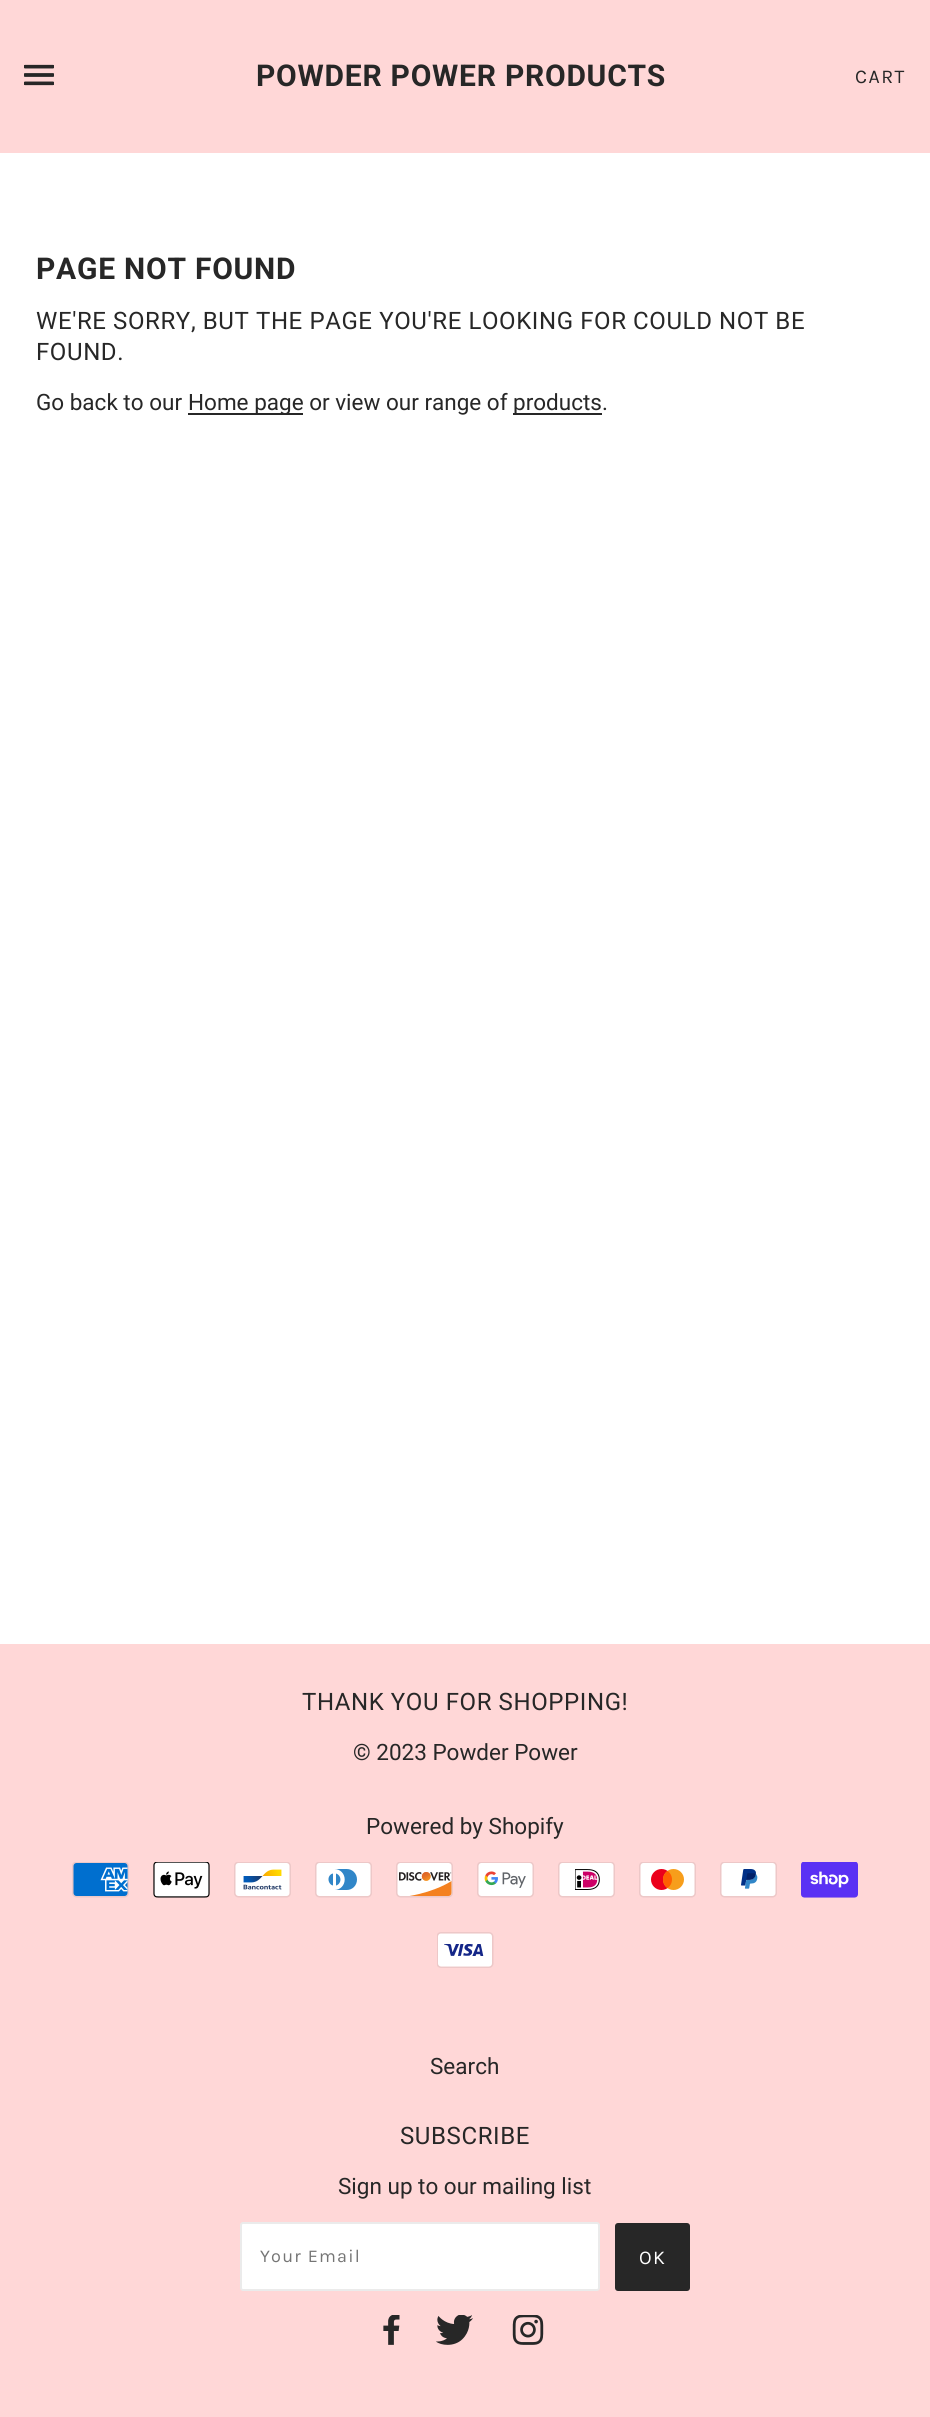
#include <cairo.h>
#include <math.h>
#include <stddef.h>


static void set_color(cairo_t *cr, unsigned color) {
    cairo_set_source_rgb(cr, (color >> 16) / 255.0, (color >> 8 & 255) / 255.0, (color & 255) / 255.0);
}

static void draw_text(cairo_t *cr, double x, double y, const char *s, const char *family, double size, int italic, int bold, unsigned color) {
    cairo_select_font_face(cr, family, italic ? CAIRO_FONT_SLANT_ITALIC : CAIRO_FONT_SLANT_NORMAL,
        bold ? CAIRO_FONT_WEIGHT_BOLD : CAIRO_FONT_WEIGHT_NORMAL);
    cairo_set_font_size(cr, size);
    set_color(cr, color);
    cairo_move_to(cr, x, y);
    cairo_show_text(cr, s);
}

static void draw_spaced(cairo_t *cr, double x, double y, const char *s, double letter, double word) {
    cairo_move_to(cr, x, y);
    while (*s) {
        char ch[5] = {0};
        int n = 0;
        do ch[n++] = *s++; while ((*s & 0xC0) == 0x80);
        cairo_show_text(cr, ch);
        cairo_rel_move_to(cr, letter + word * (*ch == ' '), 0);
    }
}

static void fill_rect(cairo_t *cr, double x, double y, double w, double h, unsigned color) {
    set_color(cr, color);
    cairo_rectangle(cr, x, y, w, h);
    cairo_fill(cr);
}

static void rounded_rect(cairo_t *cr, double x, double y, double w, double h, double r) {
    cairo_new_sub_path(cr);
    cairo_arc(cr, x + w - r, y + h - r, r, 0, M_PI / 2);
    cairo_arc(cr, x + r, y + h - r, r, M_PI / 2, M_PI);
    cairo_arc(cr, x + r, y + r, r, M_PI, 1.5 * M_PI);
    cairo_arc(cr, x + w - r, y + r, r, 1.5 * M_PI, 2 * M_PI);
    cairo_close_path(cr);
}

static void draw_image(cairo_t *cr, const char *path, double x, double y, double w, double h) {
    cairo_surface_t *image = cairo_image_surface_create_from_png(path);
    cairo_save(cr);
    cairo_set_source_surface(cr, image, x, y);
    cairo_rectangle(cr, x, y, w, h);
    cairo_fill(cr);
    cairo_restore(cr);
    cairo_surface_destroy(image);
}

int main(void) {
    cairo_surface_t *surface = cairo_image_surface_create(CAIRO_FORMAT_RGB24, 930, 2417);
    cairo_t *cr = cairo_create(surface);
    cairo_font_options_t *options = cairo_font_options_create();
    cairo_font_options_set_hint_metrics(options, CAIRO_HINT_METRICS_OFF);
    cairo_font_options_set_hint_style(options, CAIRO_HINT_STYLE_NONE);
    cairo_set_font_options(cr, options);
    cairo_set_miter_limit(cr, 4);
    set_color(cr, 0xFFFFFF);
    cairo_paint(cr);
    fill_rect(cr, 0, 0, 930, 153, 0xFFD7D7);
    draw_image(cr, "assets/img1.png", 24, 64, 30, 22);
    cairo_select_font_face(cr, "Roboto", CAIRO_FONT_SLANT_NORMAL, CAIRO_FONT_WEIGHT_BOLD);
    cairo_set_font_size(cr, 30);
    set_color(cr, 0x272727);
    draw_spaced(cr, 256, 86, "POWDER POWER PRODUCTS", 0.75, 0);
    cairo_select_font_face(cr, "Karla", CAIRO_FONT_SLANT_NORMAL, CAIRO_FONT_WEIGHT_NORMAL);
    cairo_set_font_size(cr, 19.5);
    draw_spaced(cr, 855, 83, "CART", 1.5, 0);
    cairo_select_font_face(cr, "Roboto", CAIRO_FONT_SLANT_NORMAL, CAIRO_FONT_WEIGHT_BOLD);
    cairo_set_font_size(cr, 30);
    draw_spaced(cr, 36, 279, "PAGE NOT FOUND", 0.75, 0);
    cairo_select_font_face(cr, "Roboto", CAIRO_FONT_SLANT_NORMAL, CAIRO_FONT_WEIGHT_NORMAL);
    cairo_set_font_size(cr, 24);
    draw_spaced(cr, 36, 329, "WE'RE SORRY, BUT THE PAGE YOU'RE LOOKING FOR COULD NOT BE", 0.6, 0);
    draw_spaced(cr, 36, 360, "FOUND.", 0.6, 0);
    draw_text(cr, 36, 410, "Go back to our", "Roboto", 22.5, 0, 0, 0x272727);
    fill_rect(cr, 188, 413, 115, 2, 0x272727);
    draw_text(cr, 188, 410, "Home page or view our range of", "Roboto", 22.5, 0, 0, 0x272727);
    fill_rect(cr, 513, 413, 89, 2, 0x272727);
    draw_text(cr, 513, 410, "products.", "Roboto", 22.5, 0, 0, 0x272727);
    fill_rect(cr, 0, 1644, 930, 773, 0xFFD7D7);
    cairo_set_font_size(cr, 24);
    set_color(cr, 0x272727);
    draw_spaced(cr, 302, 1710, "THANK YOU FOR SHOPPING!", 0.6, 0);
    draw_text(cr, 353, 1760, "© 2023 Powder Power", "Roboto", 22.5, 0, 0, 0x272727);
    draw_text(cr, 366, 1834, "Powered by Shopify", "Roboto", 22.5, 0, 0, 0x272727);
    draw_image(cr, "assets/img2.png", 72, 1862, 57, 36);
    draw_image(cr, "assets/img3.png", 153, 1862, 57, 36);
    draw_image(cr, "assets/img4.png", 234, 1862, 57, 36);
    draw_image(cr, "assets/img5.png", 315, 1862, 57, 36);
    draw_image(cr, "assets/img6.png", 396, 1862, 57, 36);
    draw_image(cr, "assets/img7.png", 477, 1862, 57, 36);
    draw_image(cr, "assets/img8.png", 558, 1862, 57, 36);
    draw_image(cr, "assets/img9.png", 639, 1862, 57, 36);
    draw_image(cr, "assets/img10.png", 720, 1862, 57, 36);
    draw_image(cr, "assets/img11.png", 801, 1862, 57, 36);
    draw_image(cr, "assets/img12.png", 437, 1932, 57, 36);
    draw_text(cr, 430, 2074, "Search", "Roboto", 22.5, 0, 0, 0x272727);
    cairo_set_font_size(cr, 24);
    draw_spaced(cr, 400, 2144, "SUBSCRIBE", 0.6, 0);
    draw_text(cr, 338, 2194, "Sign up to our mailing list", "Roboto", 22.5, 0, 0, 0x272727);
    set_color(cr, 0xFFFFFF);
    rounded_rect(cr, 241, 2223, 358, 67, 2);
    cairo_fill_preserve(cr);
    set_color(cr, 0xEBEBEB);
    cairo_stroke(cr);
    cairo_select_font_face(cr, "Karla", CAIRO_FONT_SLANT_NORMAL, CAIRO_FONT_WEIGHT_NORMAL);
    cairo_set_font_size(cr, 18);
    set_color(cr, 0x757575);
    draw_spaced(cr, 260, 2262, "Your Email", 1.25, 0);
    set_color(cr, 0x272727);
    rounded_rect(cr, 615, 2223, 75, 68, 3);
    cairo_fill(cr);
    cairo_set_font_size(cr, 19.5);
    set_color(cr, 0xFFFFFF);
    draw_spaced(cr, 639, 2264, "OK", 1.5, 0);
    draw_image(cr, "assets/img13.png", 383, 2315, 17, 30);
    draw_image(cr, "assets/img14.png", 436, 2315, 37, 30);
    draw_image(cr, "assets/img15.png", 512, 2315, 32, 30);
    cairo_surface_write_to_png(surface, "output.png");
    cairo_font_options_destroy(options);
    cairo_destroy(cr);
    cairo_surface_destroy(surface);
    return 0;
}
